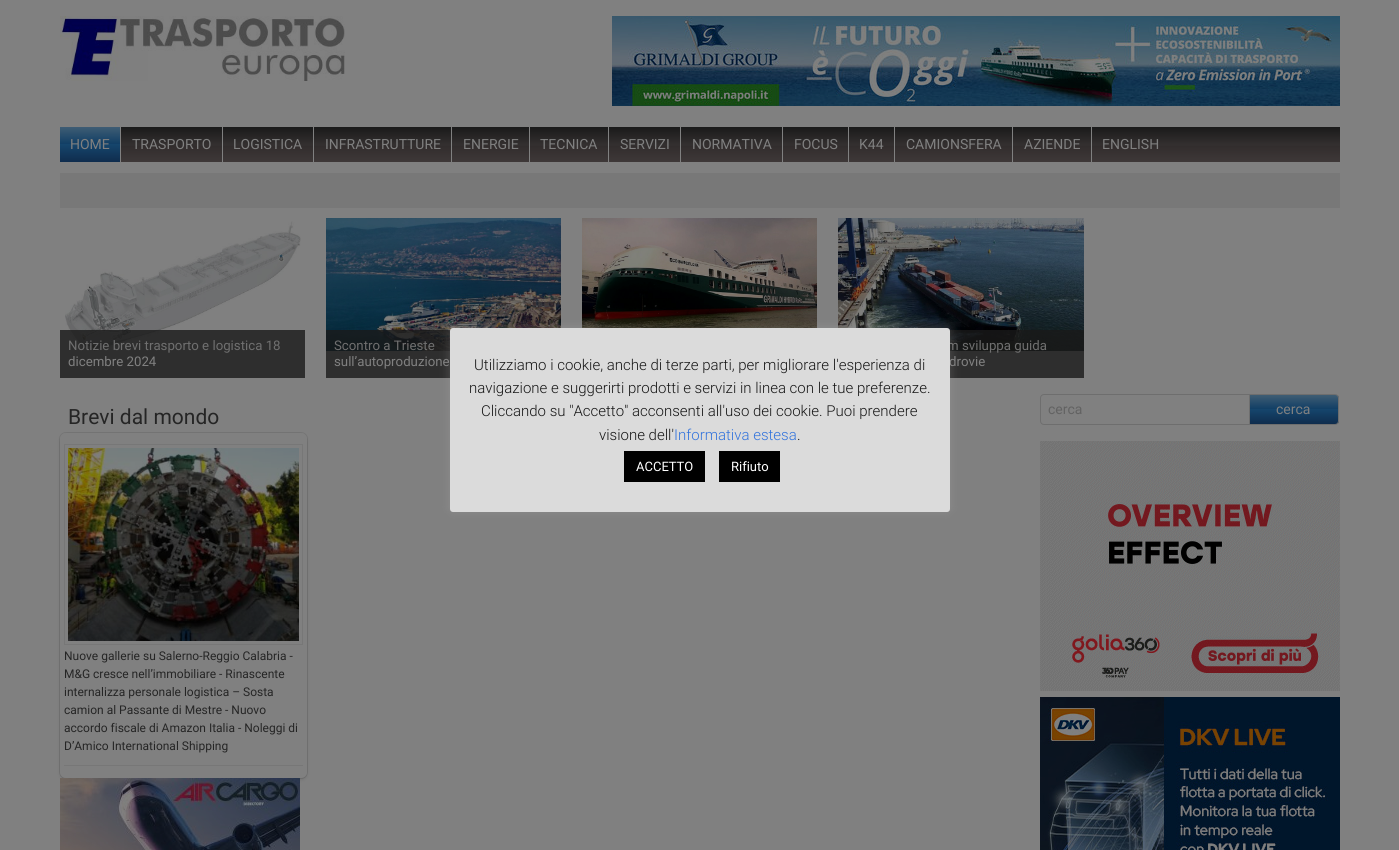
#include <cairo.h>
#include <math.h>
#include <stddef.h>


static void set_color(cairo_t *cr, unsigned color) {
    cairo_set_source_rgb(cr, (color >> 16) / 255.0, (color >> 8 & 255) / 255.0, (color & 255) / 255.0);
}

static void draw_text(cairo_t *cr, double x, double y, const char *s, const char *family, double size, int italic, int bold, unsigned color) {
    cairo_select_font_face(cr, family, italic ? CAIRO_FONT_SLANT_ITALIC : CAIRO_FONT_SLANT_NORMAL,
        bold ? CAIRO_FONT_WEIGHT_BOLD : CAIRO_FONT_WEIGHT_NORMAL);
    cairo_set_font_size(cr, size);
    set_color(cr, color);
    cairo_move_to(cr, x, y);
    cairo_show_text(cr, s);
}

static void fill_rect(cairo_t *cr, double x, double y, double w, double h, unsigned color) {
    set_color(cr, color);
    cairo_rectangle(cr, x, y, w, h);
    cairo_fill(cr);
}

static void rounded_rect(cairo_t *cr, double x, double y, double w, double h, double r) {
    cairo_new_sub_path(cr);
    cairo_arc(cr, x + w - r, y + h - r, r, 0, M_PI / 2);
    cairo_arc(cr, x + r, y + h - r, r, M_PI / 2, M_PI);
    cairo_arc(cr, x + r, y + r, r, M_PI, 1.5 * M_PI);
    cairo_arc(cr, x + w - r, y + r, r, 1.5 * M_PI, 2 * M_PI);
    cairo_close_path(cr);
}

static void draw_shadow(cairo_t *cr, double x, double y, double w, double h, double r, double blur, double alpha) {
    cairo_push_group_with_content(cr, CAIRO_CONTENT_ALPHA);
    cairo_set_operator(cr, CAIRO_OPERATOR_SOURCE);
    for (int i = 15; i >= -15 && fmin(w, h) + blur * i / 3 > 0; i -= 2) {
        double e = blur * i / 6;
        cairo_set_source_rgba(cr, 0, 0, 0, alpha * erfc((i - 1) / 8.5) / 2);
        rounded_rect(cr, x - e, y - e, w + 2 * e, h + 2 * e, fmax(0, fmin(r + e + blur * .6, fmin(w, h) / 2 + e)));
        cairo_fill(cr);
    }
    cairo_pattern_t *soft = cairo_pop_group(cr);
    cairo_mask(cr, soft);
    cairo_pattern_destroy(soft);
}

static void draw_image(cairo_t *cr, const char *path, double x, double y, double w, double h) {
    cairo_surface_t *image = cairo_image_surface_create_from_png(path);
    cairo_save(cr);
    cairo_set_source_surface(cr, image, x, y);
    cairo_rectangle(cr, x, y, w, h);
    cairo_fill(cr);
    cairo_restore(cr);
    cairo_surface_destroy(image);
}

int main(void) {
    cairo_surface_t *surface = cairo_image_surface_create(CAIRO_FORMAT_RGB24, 1399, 850);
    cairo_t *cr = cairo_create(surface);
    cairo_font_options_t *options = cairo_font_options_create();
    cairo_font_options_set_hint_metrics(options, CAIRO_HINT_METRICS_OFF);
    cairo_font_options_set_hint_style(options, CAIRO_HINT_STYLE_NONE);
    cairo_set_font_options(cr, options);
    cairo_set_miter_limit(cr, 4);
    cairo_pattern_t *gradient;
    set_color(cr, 0x808080);
    cairo_paint(cr);
    draw_image(cr, "assets/img1.png", 60, 16, 285, 65);
    draw_image(cr, "assets/img2.png", 612, 16, 728, 90);
    gradient = cairo_pattern_create_linear(700, 127, 700, 162);
    cairo_pattern_add_color_stop_rgba(gradient, 0, 0.102, 0.102, 0.102, 1);
    cairo_pattern_add_color_stop_rgba(gradient, 0.52, 0.204, 0.188, 0.188, 1);
    cairo_pattern_add_color_stop_rgba(gradient, 0.54, 0.196, 0.176, 0.176, 1);
    cairo_pattern_add_color_stop_rgba(gradient, 1, 0.243, 0.22, 0.22, 1);
    cairo_set_source(cr, gradient);
    cairo_pattern_destroy(gradient);
    cairo_rectangle(cr, 121, 127, 1219, 35);
    cairo_fill(cr);
    gradient = cairo_pattern_create_linear(90, 127, 90, 162);
    cairo_pattern_add_color_stop_rgba(gradient, 0, 0.247, 0.365, 0.455, 1);
    cairo_pattern_add_color_stop_rgba(gradient, 0.49, 0.063, 0.243, 0.396, 1);
    cairo_pattern_add_color_stop_rgba(gradient, 0.5, 0.082, 0.271, 0.424, 1);
    cairo_pattern_add_color_stop_rgba(gradient, 1, 0.059, 0.173, 0.302, 1);
    cairo_set_source(cr, gradient);
    cairo_pattern_destroy(gradient);
    cairo_rectangle(cr, 60, 127, 60, 35);
    cairo_fill(cr);
    draw_text(cr, 70, 149, "HOME", "Roboto", 14, 0, 0, 0x808080);
    fill_rect(cr, 222, 127, 1, 35, 0x808080);
    draw_text(cr, 132, 149, "TRASPORTO", "Roboto", 14, 0, 0, 0x808080);
    fill_rect(cr, 313, 127, 1, 35, 0x808080);
    draw_text(cr, 233, 149, "LOGISTICA", "Roboto", 14, 0, 0, 0x808080);
    fill_rect(cr, 451, 127, 1, 35, 0x808080);
    draw_text(cr, 325, 149, "INFRASTRUTTURE", "Roboto", 14, 0, 0, 0x808080);
    fill_rect(cr, 529, 127, 1, 35, 0x808080);
    draw_text(cr, 463, 149, "ENERGIE", "Roboto", 14, 0, 0, 0x808080);
    fill_rect(cr, 608, 127, 1, 35, 0x808080);
    draw_text(cr, 540, 149, "TECNICA", "Roboto", 14, 0, 0, 0x808080);
    fill_rect(cr, 680, 127, 1, 35, 0x808080);
    draw_text(cr, 620, 149, "SERVIZI", "Roboto", 14, 0, 0, 0x808080);
    fill_rect(cr, 782, 127, 1, 35, 0x808080);
    draw_text(cr, 692, 149, "NORMATIVA", "Roboto", 14, 0, 0, 0x808080);
    fill_rect(cr, 848, 127, 1, 35, 0x808080);
    draw_text(cr, 794, 149, "FOCUS", "Roboto", 14, 0, 0, 0x808080);
    fill_rect(cr, 894, 127, 1, 35, 0x808080);
    draw_text(cr, 859, 149, "K44", "Roboto", 14, 0, 0, 0x808080);
    fill_rect(cr, 1012, 127, 1, 35, 0x808080);
    draw_text(cr, 906, 149, "CAMIONSFERA", "Roboto", 14, 0, 0, 0x808080);
    fill_rect(cr, 1091, 127, 1, 35, 0x808080);
    draw_text(cr, 1024, 149, "AZIENDE", "Roboto", 14, 0, 0, 0x808080);
    draw_text(cr, 1102, 149, "ENGLISH", "Roboto", 14, 0, 0, 0x808080);
    fill_rect(cr, 60, 173, 1280, 35, 0x787878);
    draw_image(cr, "assets/img3.png", 582, 218, 235, 110);
    draw_image(cr, "assets/img4.png", 65, 221, 236, 130);
    cairo_set_source_rgba(cr, 0.102, 0.102, 0.102, 0.8);
    cairo_rectangle(cr, 60, 330, 245, 48);
    cairo_fill(cr);
    draw_text(cr, 68, 350, "Notizie brevi trasporto e logistica 18", "Roboto", 13.25, 0, 0, 0x6F6F6F);
    draw_text(cr, 68, 366, "dicembre 2024", "Roboto", 13.25, 0, 0, 0x808080);
    draw_image(cr, "assets/img5.png", 326, 218, 235, 133);
    cairo_set_source_rgba(cr, 0.102, 0.102, 0.102, 0.8);
    cairo_rectangle(cr, 326, 330, 125, 48);
    cairo_fill(cr);
    draw_text(cr, 334, 350, "Scontro a Trieste", "Roboto", 13.25, 0, 0, 0x6F6F6F);
    draw_text(cr, 334, 366, "sull’autoproduzione", "Roboto", 13.25, 0, 0, 0x808080);
    draw_image(cr, "assets/img6.png", 838, 218, 246, 133);
    cairo_set_source_rgba(cr, 0.102, 0.102, 0.102, 0.8);
    cairo_rectangle(cr, 949, 330, 135, 48);
    cairo_fill(cr);
    draw_text(cr, 947, 350, "m sviluppa guida", "Roboto", 13.25, 0, 0, 0x6F6F6F);
    draw_text(cr, 949, 366, "drovie", "Roboto", 13.25, 0, 0, 0x808080);
    draw_text(cr, 68, 424, "Brevi dal mondo", "Roboto", 21, 0, 0, 0x252525);
    rounded_rect(cr, 59.5, 432.5, 248, 346, 6.5);
    set_color(cr, 0x747474);
    cairo_set_line_width(cr, 1);
    cairo_stroke(cr);
    set_color(cr, 0x050505);
    draw_shadow(cr, 60, 435, 247, 345, 6, 1.5, 0.1);
    set_color(cr, 0x808080);
    rounded_rect(cr, 60, 433, 247, 345, 6);
    cairo_fill(cr);
    fill_rect(cr, 64, 765, 239, 1, 0x777777);
    cairo_rectangle(cr, 64.5, 444.5, 238, 200);
    cairo_stroke(cr);
    draw_image(cr, "assets/img7.png", 68, 448, 231, 193);
    draw_text(cr, 64, 660, "Nuove gallerie su Salerno-Reggio Calabria -", "Roboto", 12, 0, 0, 0x252525);
    draw_text(cr, 64, 678, "M&G cresce nell’immobiliare - Rinascente", "Roboto", 12, 0, 0, 0x252525);
    draw_text(cr, 64, 696, "internalizza personale logistica – Sosta", "Roboto", 12, 0, 0, 0x252525);
    draw_text(cr, 64, 714, "camion al Passante di Mestre - Nuovo", "Roboto", 12, 0, 0, 0x252525);
    draw_text(cr, 64, 732, "accordo fiscale di Amazon Italia - Noleggi di", "Roboto", 12, 0, 0, 0x252525);
    draw_text(cr, 64, 750, "D’Amico International Shipping", "Roboto", 12, 0, 0, 0x252525);
    draw_image(cr, "assets/img8.png", 60, 778, 240, 72);
    cairo_new_path(cr);
    cairo_move_to(cr, 1044, 394.5);
    cairo_line_to(cr, 1249.5, 394.5);
    cairo_line_to(cr, 1249.5, 424.5);
    cairo_line_to(cr, 1044, 424.5);
    cairo_curve_to(cr, 1042, 424.5, 1040.5, 423, 1040.5, 421);
    cairo_line_to(cr, 1040.5, 398);
    cairo_curve_to(cr, 1040.5, 396, 1042, 394.5, 1044, 394.5);
    cairo_close_path(cr);
    set_color(cr, 0x6E6E6E);
    cairo_stroke(cr);
    draw_text(cr, 1048, 414, "cerca", "Roboto", 14, 0, 0, 0x626262);
    cairo_save(cr);
    cairo_new_path(cr);
    cairo_move_to(cr, 1249, 394);
    cairo_line_to(cr, 1335, 394);
    cairo_curve_to(cr, 1337, 394, 1339, 396, 1339, 398);
    cairo_line_to(cr, 1339, 421);
    cairo_curve_to(cr, 1339, 423, 1337, 425, 1335, 425);
    cairo_line_to(cr, 1249, 425);
    cairo_close_path(cr);
    cairo_clip(cr);
    gradient = cairo_pattern_create_linear(1294, 395, 1294, 424);
    cairo_pattern_add_color_stop_rgba(gradient, 0, 0.247, 0.365, 0.455, 1);
    cairo_pattern_add_color_stop_rgba(gradient, 0.49, 0.063, 0.243, 0.396, 1);
    cairo_pattern_add_color_stop_rgba(gradient, 0.5, 0.082, 0.271, 0.424, 1);
    cairo_pattern_add_color_stop_rgba(gradient, 1, 0.059, 0.173, 0.302, 1);
    cairo_set_source(cr, gradient);
    cairo_pattern_destroy(gradient);
    cairo_rectangle(cr, 1250, 395, 89, 29);
    cairo_fill(cr);
    cairo_restore(cr);
    cairo_new_path(cr);
    cairo_move_to(cr, 1249.5, 394.5);
    cairo_line_to(cr, 1335, 394.5);
    cairo_curve_to(cr, 1337, 394.5, 1338.5, 396, 1338.5, 398);
    cairo_line_to(cr, 1338.5, 421);
    cairo_curve_to(cr, 1338.5, 423, 1337, 424.5, 1335, 424.5);
    cairo_line_to(cr, 1249.5, 424.5);
    cairo_close_path(cr);
    set_color(cr, 0x6E6E6E);
    cairo_stroke(cr);
    draw_text(cr, 1276, 414, "cerca", "Roboto", 14, 0, 0, 0x808080);
    draw_image(cr, "assets/img9.png", 1040, 441, 300, 250);
    draw_image(cr, "assets/img10.png", 1040, 697, 300, 153);
    set_color(cr, 0xACABAB);
    draw_shadow(cr, 450, 327, 500, 184, 3, 5, 0.3);
    set_color(cr, 0xDBDBDB);
    rounded_rect(cr, 450, 328, 500, 184, 3);
    cairo_fill(cr);
    draw_text(cr, 474, 370, "Utilizziamo i cookie, anche di terze parti, per migliorare l'esperienza di", "Roboto Light", 15, 0, 0, 0x161616);
    draw_text(cr, 469, 393, "navigazione e suggerirti prodotti e servizi in linea con le tue preferenze.", "Roboto Light", 15, 0, 0, 0x161616);
    draw_text(cr, 481, 416, "Cliccando su \"Accetto\" acconsenti all'uso dei cookie. Puoi prendere", "Roboto Light", 15, 0, 0, 0x161616);
    draw_text(cr, 599, 440, "visione dell'", "Roboto Light", 15, 0, 0, 0x161616);
    draw_text(cr, 674, 440, "Informativa estesa", "Roboto Light", 15, 0, 0, 0x3273DC);
    draw_text(cr, 797, 440, ".", "Roboto Light", 15, 0, 0, 0x161616);
    fill_rect(cr, 624, 451, 81, 31, 0x000000);
    draw_text(cr, 636, 471, "ACCETTO", "Roboto", 13, 0, 0, 0xFFFFFF);
    fill_rect(cr, 719, 451, 61, 31, 0x000000);
    draw_text(cr, 731, 471, "Rifiuto", "Roboto", 13, 0, 0, 0xFFFFFF);
    cairo_surface_write_to_png(surface, "output.png");
    cairo_font_options_destroy(options);
    cairo_destroy(cr);
    cairo_surface_destroy(surface);
    return 0;
}
